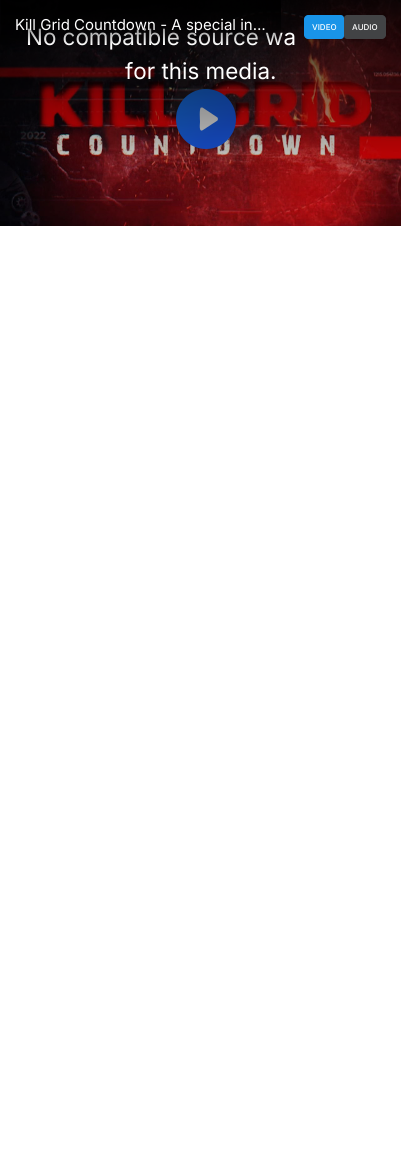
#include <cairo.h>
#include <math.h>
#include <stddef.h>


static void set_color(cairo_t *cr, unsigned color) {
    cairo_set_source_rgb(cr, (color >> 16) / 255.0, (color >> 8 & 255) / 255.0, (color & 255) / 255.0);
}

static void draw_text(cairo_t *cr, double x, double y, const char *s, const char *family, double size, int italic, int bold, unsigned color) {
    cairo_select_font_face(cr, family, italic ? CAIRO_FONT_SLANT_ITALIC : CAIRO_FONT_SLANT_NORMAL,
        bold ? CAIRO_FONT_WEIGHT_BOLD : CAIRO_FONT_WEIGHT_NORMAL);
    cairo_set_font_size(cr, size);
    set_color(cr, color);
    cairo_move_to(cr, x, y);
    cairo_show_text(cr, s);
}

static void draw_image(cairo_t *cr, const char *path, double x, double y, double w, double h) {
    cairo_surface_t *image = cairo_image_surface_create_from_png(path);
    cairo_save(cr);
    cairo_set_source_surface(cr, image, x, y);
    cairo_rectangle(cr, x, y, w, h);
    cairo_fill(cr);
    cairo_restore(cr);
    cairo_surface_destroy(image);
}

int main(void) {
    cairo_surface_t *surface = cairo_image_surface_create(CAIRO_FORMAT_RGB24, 401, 1156);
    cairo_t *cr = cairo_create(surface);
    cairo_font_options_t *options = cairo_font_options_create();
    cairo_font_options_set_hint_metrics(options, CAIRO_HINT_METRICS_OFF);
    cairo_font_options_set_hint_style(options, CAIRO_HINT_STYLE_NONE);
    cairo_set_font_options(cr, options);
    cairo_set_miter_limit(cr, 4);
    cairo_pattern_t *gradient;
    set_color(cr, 0xFFFFFF);
    cairo_paint(cr);
    draw_image(cr, "assets/img1.png", 0, 0, 401, 226);
    gradient = cairo_pattern_create_linear(181, 88, 217, 132);
    cairo_pattern_add_color_stop_rgba(gradient, 0, 0.102, 0.494, 0.98, 1);
    cairo_pattern_add_color_stop_rgba(gradient, 1, 0.11, 0.38, 0.976, 1);
    cairo_set_source(cr, gradient);
    cairo_pattern_destroy(gradient);
    cairo_arc(cr, 206, 119, 30, 0, 2 * M_PI);
    cairo_fill(cr);
    set_color(cr, 0xFFFFFF);
    cairo_new_path(cr);
    cairo_move_to(cr, 203, 130);
    cairo_curve_to(cr, 198.5, 133, 200, 123.5, 200, 122);
    cairo_curve_to(cr, 200, 120, 199, 108.5, 201, 107.5);
    cairo_line_to(cr, 202.5, 107.5);
    cairo_line_to(cr, 217.5, 117.5);
    cairo_line_to(cr, 218, 119);
    cairo_line_to(cr, 217.5, 120.5);
    cairo_close_path(cr);
    cairo_fill(cr);
    gradient = cairo_pattern_create_linear(201, 0, 201, 226);
    cairo_pattern_add_color_stop_rgba(gradient, 0, 0, 0, 0, 0.8);
    cairo_pattern_add_color_stop_rgba(gradient, 1, 0, 0, 0, 0);
    cairo_set_source(cr, gradient);
    cairo_pattern_destroy(gradient);
    cairo_rectangle(cr, 0, 0, 401, 220);
    cairo_fill(cr);
    draw_text(cr, 26, 45, "No compatible source wa", "Inter", 22.4, 0, 0, 0xFFFFFF);
    gradient = cairo_pattern_create_linear(141, 0, 141, 45);
    cairo_pattern_add_color_stop_rgba(gradient, 0.2, 0, 0, 0, 0.9);
    cairo_pattern_add_color_stop_rgba(gradient, 1, 0, 0, 0, 0);
    cairo_set_source(cr, gradient);
    cairo_pattern_destroy(gradient);
    cairo_rectangle(cr, 1, 0, 280, 44);
    cairo_fill(cr);
    draw_text(cr, 15, 30, "Kill Grid Countdown - A special in…", "Inter", 15, 0, 0, 0xFFFFFF);
    draw_text(cr, 125, 79, "for this media.", "Inter", 22.4, 0, 0, 0xFFFFFF);
    set_color(cr, 0x1994E8);
    cairo_new_path(cr);
    cairo_move_to(cr, 308, 15);
    cairo_line_to(cr, 341, 15);
    cairo_curve_to(cr, 342.5, 15, 344, 16.5, 344, 18);
    cairo_line_to(cr, 344, 36);
    cairo_curve_to(cr, 344, 37.5, 342.5, 39, 341, 39);
    cairo_line_to(cr, 308, 39);
    cairo_curve_to(cr, 306, 39, 304, 37, 304, 35);
    cairo_line_to(cr, 304, 19);
    cairo_curve_to(cr, 304, 17, 306, 15, 308, 15);
    cairo_close_path(cr);
    cairo_fill(cr);
    draw_text(cr, 312, 30, "VIDEO", "Inter Medium", 8, 0, 0, 0xFFFFFF);
    set_color(cr, 0x424345);
    cairo_new_path(cr);
    cairo_move_to(cr, 347, 15);
    cairo_line_to(cr, 382, 15);
    cairo_curve_to(cr, 384, 15, 386, 17, 386, 19);
    cairo_line_to(cr, 386, 35);
    cairo_curve_to(cr, 386, 37, 384, 39, 382, 39);
    cairo_line_to(cr, 347, 39);
    cairo_curve_to(cr, 345.5, 39, 344, 37.5, 344, 36);
    cairo_line_to(cr, 344, 18);
    cairo_curve_to(cr, 344, 16.5, 345.5, 15, 347, 15);
    cairo_close_path(cr);
    cairo_fill(cr);
    draw_text(cr, 352, 30, "AUDIO", "Inter Medium", 8, 0, 0, 0xFFFFFF);
    cairo_surface_write_to_png(surface, "output.png");
    cairo_font_options_destroy(options);
    cairo_destroy(cr);
    cairo_surface_destroy(surface);
    return 0;
}
